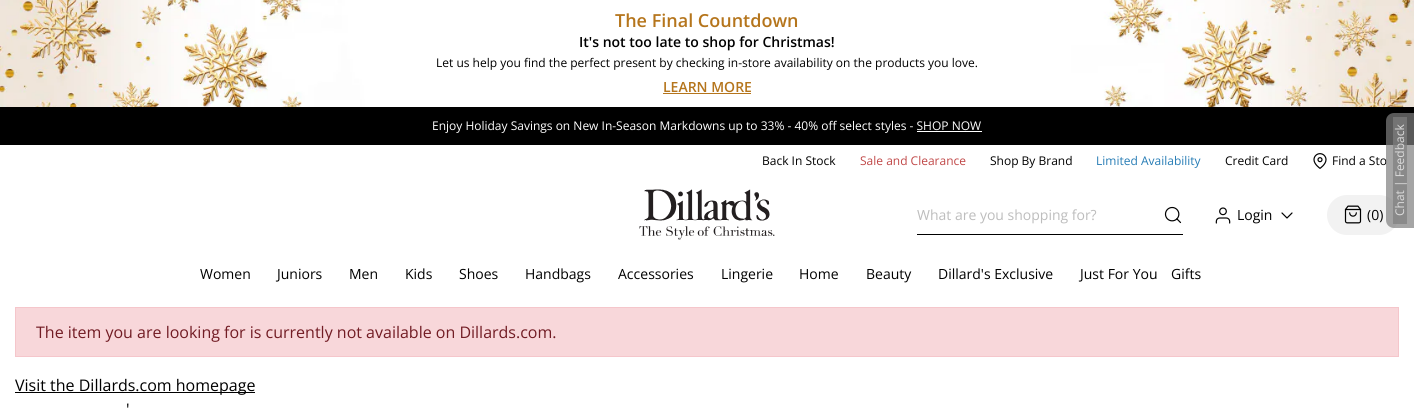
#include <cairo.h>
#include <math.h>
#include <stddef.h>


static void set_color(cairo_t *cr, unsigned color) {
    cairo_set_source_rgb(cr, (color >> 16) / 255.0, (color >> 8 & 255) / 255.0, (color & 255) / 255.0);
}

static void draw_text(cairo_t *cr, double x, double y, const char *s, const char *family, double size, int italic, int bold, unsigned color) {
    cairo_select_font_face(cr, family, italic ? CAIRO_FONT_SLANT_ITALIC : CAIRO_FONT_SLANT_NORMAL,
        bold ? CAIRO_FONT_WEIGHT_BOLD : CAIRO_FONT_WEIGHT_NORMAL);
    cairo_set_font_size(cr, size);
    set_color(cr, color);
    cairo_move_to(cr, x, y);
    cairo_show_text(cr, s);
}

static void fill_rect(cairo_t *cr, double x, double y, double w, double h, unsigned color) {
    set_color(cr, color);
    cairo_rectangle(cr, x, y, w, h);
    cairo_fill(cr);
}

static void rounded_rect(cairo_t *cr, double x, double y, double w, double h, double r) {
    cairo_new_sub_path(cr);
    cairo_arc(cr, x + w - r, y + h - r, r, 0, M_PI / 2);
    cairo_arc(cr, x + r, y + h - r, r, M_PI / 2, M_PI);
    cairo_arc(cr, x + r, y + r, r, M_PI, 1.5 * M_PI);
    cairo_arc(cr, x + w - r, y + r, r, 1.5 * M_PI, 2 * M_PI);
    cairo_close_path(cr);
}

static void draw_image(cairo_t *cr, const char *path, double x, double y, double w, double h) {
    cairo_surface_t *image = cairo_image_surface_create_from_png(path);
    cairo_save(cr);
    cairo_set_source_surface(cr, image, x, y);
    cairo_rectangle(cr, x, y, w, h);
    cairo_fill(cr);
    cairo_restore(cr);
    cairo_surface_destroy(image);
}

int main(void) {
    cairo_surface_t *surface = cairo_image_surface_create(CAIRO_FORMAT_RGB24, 1414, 410);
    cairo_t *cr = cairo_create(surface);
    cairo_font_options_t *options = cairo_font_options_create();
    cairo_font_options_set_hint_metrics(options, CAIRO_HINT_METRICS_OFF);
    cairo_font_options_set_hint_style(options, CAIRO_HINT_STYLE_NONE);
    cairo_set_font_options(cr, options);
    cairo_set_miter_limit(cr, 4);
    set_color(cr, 0xFFFFFF);
    cairo_paint(cr);
    draw_image(cr, "assets/img1.png", 0, 0, 1414, 107);
    draw_text(cr, 615, 27, "The Final Countdown", "Open Sans SemiBold", 18, 0, 0, 0xB5751C);
    draw_text(cr, 579, 47, "It's not too late to shop for Christmas!", "Open Sans SemiBold", 14, 0, 0, 0x000000);
    draw_text(cr, 436, 67, "Let us help you find the perfect present by checking in-store availability on the products you love.", "Open Sans", 12, 0, 0, 0x000000);
    draw_text(cr, 663, 92, "LEARN MORE", "Open Sans SemiBold", 14, 0, 0, 0xB5751C);
    fill_rect(cr, 663, 93, 88, 1, 0xB5751C);
    fill_rect(cr, 0, 107, 1414, 38, 0x000000);
    draw_text(cr, 432, 130, "Enjoy Holiday Savings on New In-Season Markdowns up to 33% - 40% off select styles - SHOP NOW", "Open Sans", 12, 0, 0, 0xFFFFFF);
    fill_rect(cr, 917, 131, 65, 1, 0xFFFFFF);
    draw_text(cr, 762, 165, "Back In Stock", "Open Sans", 12, 0, 0, 0x000000);
    draw_text(cr, 860, 165, "Sale and Clearance", "Open Sans", 12, 0, 0, 0xC04747);
    draw_text(cr, 990, 165, "Shop By Brand", "Open Sans", 12, 0, 0, 0x000000);
    draw_text(cr, 1096, 165, "Limited Availability", "Open Sans", 12, 0, 0, 0x267CB5);
    draw_text(cr, 1225, 165, "Credit Card", "Open Sans", 12, 0, 0, 0x000000);
    draw_image(cr, "assets/img2.png", 1313, 153, 14, 16);
    draw_text(cr, 1332, 165, "Find a Sto", "Open Sans", 12, 0, 0, 0x000000);
    draw_image(cr, "assets/img3.png", 639, 189, 136, 51);
    fill_rect(cr, 917, 234, 266, 1, 0x000000);
    draw_text(cr, 917, 220, "What are you shopping for?", "Open Sans", 14, 0, 0, 0xBDBDBD);
    draw_image(cr, "assets/img4.png", 1164, 206, 18, 18);
    draw_image(cr, "assets/img5.png", 1215, 207, 16, 17);
    draw_text(cr, 1237, 220, "Login", "Open Sans", 14, 0, 0, 0x000000);
    cairo_new_path(cr);
    cairo_move_to(cr, 1282, 213);
    cairo_line_to(cr, 1287, 218);
    cairo_line_to(cr, 1292, 213);
    cairo_set_line_width(cr, 1.2);
    cairo_set_line_cap(cr, CAIRO_LINE_CAP_ROUND);
    cairo_set_line_join(cr, CAIRO_LINE_JOIN_ROUND);
    cairo_stroke(cr);
    set_color(cr, 0xF2F2F2);
    rounded_rect(cr, 1327, 195, 72, 40, 20);
    cairo_fill(cr);
    draw_image(cr, "assets/img6.png", 1344, 205, 18, 19);
    draw_text(cr, 1367, 220, "(0)", "Open Sans", 14, 0, 0, 0x000000);
    draw_text(cr, 200, 279, "Women", "Open Sans", 14, 0, 0, 0x000000);
    draw_text(cr, 277, 279, "Juniors", "Open Sans", 14, 0, 0, 0x000000);
    draw_text(cr, 349, 279, "Men", "Open Sans", 14, 0, 0, 0x000000);
    draw_text(cr, 405, 279, "Kids", "Open Sans", 14, 0, 0, 0x000000);
    draw_text(cr, 459, 279, "Shoes", "Open Sans", 14, 0, 0, 0x000000);
    draw_text(cr, 525, 279, "Handbags", "Open Sans", 14, 0, 0, 0x000000);
    draw_text(cr, 618, 279, "Accessories", "Open Sans", 14, 0, 0, 0x000000);
    draw_text(cr, 721, 279, "Lingerie", "Open Sans", 14, 0, 0, 0x000000);
    draw_text(cr, 799, 279, "Home", "Open Sans", 14, 0, 0, 0x000000);
    draw_text(cr, 866, 279, "Beauty", "Open Sans", 14, 0, 0, 0x000000);
    draw_text(cr, 938, 279, "Dillard's Exclusive", "Open Sans", 14, 0, 0, 0x000000);
    draw_text(cr, 1080, 279, "Just For You", "Open Sans", 14, 0, 0, 0x000000);
    draw_text(cr, 1171, 279, "Gifts", "Open Sans", 14, 0, 0, 0x000000);
    set_color(cr, 0xF8D7DA);
    cairo_rectangle(cr, 15.5, 307.5, 1383, 49);
    cairo_fill_preserve(cr);
    set_color(cr, 0xF5C6CB);
    cairo_set_line_width(cr, 1);
    cairo_set_line_cap(cr, CAIRO_LINE_CAP_BUTT);
    cairo_set_line_join(cr, CAIRO_LINE_JOIN_MITER);
    cairo_stroke(cr);
    draw_text(cr, 36, 338, "The item you are looking for is currently not available on Dillards.com.", "Open Sans", 16, 0, 0, 0x721C24);
    fill_rect(cr, 15, 392, 240, 1, 0x000000);
    draw_text(cr, 15, 391, "Visit the Dillards.com homepage", "Open Sans", 16, 0, 0, 0x000000);
    draw_text(cr, 126, 415, "'", "Open Sans", 16, 0, 0, 0x000000);
    cairo_set_source_rgba(cr, 0.502, 0.502, 0.502, 0.7);
    cairo_new_path(cr);
    cairo_move_to(cr, 1386, 220);
    cairo_line_to(cr, 1386, 121);
    cairo_curve_to(cr, 1386, 116, 1390, 113, 1394, 113);
    cairo_line_to(cr, 1414, 113);
    cairo_line_to(cr, 1414, 228);
    cairo_line_to(cr, 1394, 228);
    cairo_curve_to(cr, 1390, 228, 1386, 225, 1386, 220);
    cairo_close_path(cr);
    cairo_fill(cr);
    cairo_rectangle(cr, 1393, 117, 14, 107);
    cairo_fill(cr);
    cairo_save(cr);
    cairo_translate(cr, 1404, 216);
    cairo_rotate(cr, -90 * M_PI / 180);
    draw_text(cr, 0, 0, "Chat | Feedback", "Open Sans", 12, 0, 0, 0xDBDBDB);
    cairo_restore(cr);
    cairo_surface_write_to_png(surface, "output.png");
    cairo_font_options_destroy(options);
    cairo_destroy(cr);
    cairo_surface_destroy(surface);
    return 0;
}
